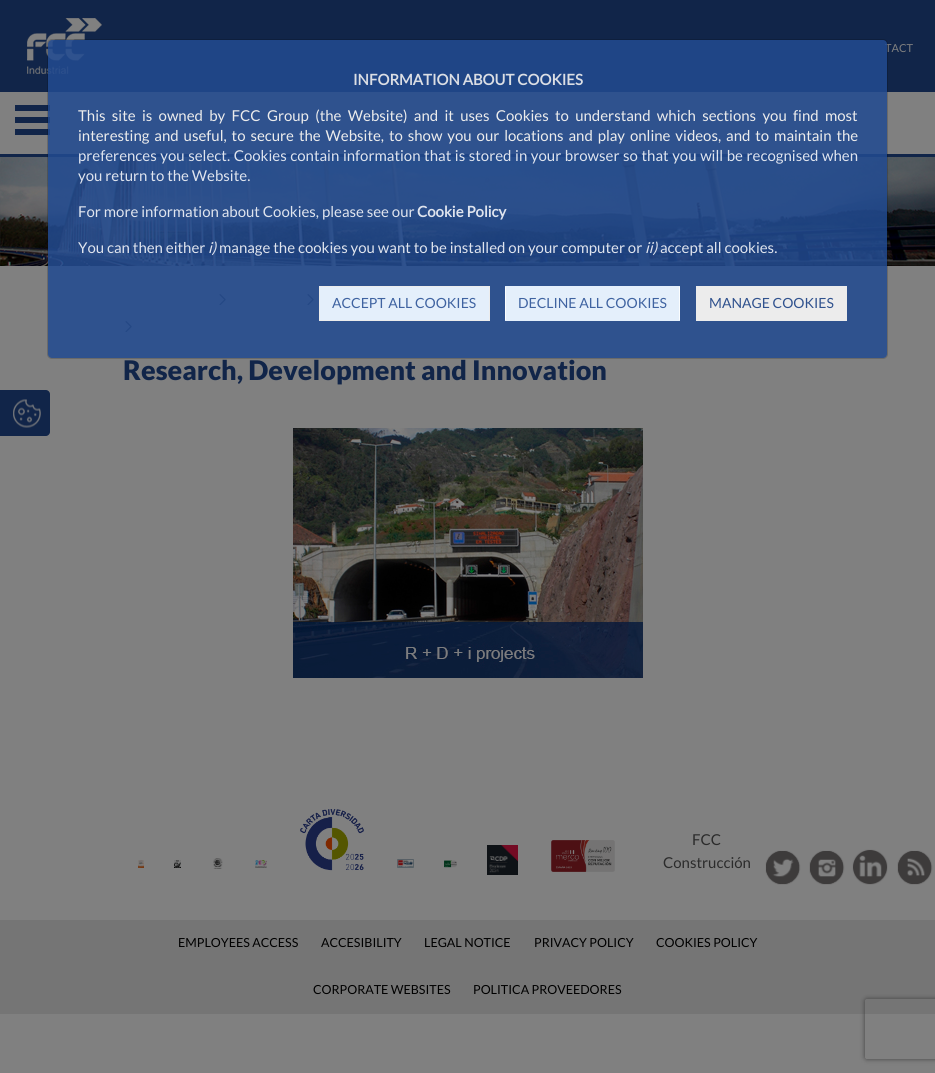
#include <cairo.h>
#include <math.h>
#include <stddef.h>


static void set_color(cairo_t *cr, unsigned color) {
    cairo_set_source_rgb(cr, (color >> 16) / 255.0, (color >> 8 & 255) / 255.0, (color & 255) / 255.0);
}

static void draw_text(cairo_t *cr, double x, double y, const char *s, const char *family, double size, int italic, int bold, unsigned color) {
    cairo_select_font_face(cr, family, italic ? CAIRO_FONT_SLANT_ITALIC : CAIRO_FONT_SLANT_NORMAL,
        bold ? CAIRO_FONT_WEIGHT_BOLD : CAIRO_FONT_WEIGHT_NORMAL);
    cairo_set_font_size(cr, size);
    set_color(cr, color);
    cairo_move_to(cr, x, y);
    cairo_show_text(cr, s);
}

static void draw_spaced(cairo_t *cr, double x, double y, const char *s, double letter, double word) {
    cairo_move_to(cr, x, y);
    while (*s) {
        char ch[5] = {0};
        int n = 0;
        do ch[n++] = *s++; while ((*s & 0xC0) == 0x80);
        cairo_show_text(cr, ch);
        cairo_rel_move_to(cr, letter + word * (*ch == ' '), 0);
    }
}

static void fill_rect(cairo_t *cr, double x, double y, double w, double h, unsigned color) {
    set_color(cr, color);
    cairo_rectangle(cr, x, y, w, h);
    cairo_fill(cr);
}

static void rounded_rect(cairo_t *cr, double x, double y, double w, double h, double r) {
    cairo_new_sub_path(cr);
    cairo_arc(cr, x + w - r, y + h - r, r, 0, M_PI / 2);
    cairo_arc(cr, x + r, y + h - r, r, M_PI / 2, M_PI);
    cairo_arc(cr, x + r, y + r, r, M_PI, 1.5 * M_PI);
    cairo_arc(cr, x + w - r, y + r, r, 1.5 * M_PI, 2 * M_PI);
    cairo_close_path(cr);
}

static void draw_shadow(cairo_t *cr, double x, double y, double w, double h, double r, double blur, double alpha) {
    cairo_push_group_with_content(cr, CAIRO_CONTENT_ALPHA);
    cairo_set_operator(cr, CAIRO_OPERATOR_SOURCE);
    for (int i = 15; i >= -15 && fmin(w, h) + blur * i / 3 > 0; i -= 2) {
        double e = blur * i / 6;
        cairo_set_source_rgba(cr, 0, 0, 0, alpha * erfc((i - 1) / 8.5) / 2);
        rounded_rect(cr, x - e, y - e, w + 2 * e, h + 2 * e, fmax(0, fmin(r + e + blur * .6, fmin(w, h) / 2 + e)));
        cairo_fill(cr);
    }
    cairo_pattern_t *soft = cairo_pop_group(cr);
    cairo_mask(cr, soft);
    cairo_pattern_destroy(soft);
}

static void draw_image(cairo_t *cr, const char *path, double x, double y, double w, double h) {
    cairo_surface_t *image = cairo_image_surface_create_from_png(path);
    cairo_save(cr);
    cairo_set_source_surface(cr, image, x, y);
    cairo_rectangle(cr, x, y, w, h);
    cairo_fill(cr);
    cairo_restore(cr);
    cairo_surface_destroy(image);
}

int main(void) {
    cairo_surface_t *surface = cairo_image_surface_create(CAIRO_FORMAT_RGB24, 935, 1073);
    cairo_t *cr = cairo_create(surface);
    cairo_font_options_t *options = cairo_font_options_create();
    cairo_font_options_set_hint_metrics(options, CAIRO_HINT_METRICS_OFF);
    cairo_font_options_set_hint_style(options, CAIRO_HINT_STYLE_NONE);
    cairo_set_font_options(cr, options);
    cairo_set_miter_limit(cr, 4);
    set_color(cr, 0x808080);
    cairo_paint(cr);
    fill_rect(cr, 0, 0, 935, 92, 0x112549);
    draw_image(cr, "assets/img1.png", 27, 18, 75, 56);
    draw_text(cr, 885, 52, "TACT", "Lato", 11, 0, 0, 0x808080);
    fill_rect(cr, 0, 154, 935, 3, 0x112549);
    fill_rect(cr, 15, 117, 35, 6, 0x112549);
    fill_rect(cr, 15, 105, 35, 6, 0x112549);
    fill_rect(cr, 15, 129, 35, 6, 0x112549);
    draw_image(cr, "assets/img2.png", 0, 157, 935, 109);
    draw_image(cr, "assets/img3.png", 219, 294, 7, 11);
    draw_image(cr, "assets/img3.png", 307, 294, 7, 11);
    draw_image(cr, "assets/img3.png", 125, 321, 7, 11);
    cairo_set_source_rgba(cr, 0.133, 0.29, 0.569, 0.85);
    rounded_rect(cr, 48, 40, 839, 318, 4);
    cairo_fill(cr);
    rounded_rect(cr, 47.5, 39.5, 840, 319, 4.5);
    cairo_set_source_rgba(cr, 0, 0, 0, 0.17);
    cairo_set_line_width(cr, 1);
    cairo_stroke(cr);
    draw_text(cr, 353, 85, "INFORMATION ABOUT COOKIES", "Lato", 15, 0, 1, 0xDBDEE4);
    cairo_select_font_face(cr, "Lato", CAIRO_FONT_SLANT_NORMAL, CAIRO_FONT_WEIGHT_NORMAL);
    set_color(cr, 0xECECEC);
    draw_spaced(cr, 78, 121, "This site is owned by FCC Group (the Website) and it uses Cookies to understand which sections you find most", 0, 3.4);
    draw_spaced(cr, 78, 141, "interesting and useful, to secure the Website, to show you our locations and play online videos, and to maintain the", 0, 2);
    set_color(cr, 0xDFE4EE);
    draw_spaced(cr, 78, 161, "preferences you select. Cookies contain information that is stored in your browser so that you will be recognised when", 0, 0.7);
    draw_text(cr, 78, 181, "you return to the Website.", "Lato", 15, 0, 0, 0xDFE4EE);
    draw_text(cr, 78, 217, "For more information about Cookies, please see our", "Lato", 15, 0, 0, 0xDFE4EE);
    draw_text(cr, 417, 217, "Cookie Policy", "Lato", 15, 0, 1, 0xDFE4EE);
    draw_text(cr, 78, 253, "You can then either", "Lato", 15, 0, 0, 0xDFE4EE);
    draw_text(cr, 208, 253, "i)", "Lato", 15, 1, 0, 0xDFE4EE);
    draw_text(cr, 219, 253, "manage the cookies you want to be installed on your computer or", "Lato", 15, 0, 0, 0xDFE4EE);
    draw_text(cr, 645, 253, "ii)", "Lato", 15, 1, 0, 0xDFE4EE);
    draw_text(cr, 660, 253, "accept all cookies.", "Lato", 15, 0, 0, 0xDFE4EE);
    cairo_set_source_rgba(cr, 0.314, 0.635, 0.961, 0.85);
    cairo_rectangle(cr, 320, 287, 169, 33);
    cairo_fill(cr);
    cairo_set_source_rgba(cr, 1, 1, 1, 0.85);
    cairo_rectangle(cr, 319.5, 286.5, 170, 34);
    cairo_fill_preserve(cr);
    set_color(cr, 0xECECEC);
    cairo_stroke(cr);
    draw_text(cr, 332, 308, "ACCEPT ALL COOKIES", "Lato", 14, 0, 0, 0x3F63A1);
    cairo_set_source_rgba(cr, 0.314, 0.635, 0.961, 0.85);
    cairo_rectangle(cr, 505, 286, 175, 35);
    cairo_fill(cr);
    cairo_set_source_rgba(cr, 1, 1, 1, 0.85);
    cairo_rectangle(cr, 505, 287, 175, 33);
    cairo_fill(cr);
    cairo_rectangle(cr, 505.5, 286.5, 174, 34);
    cairo_stroke(cr);
    draw_text(cr, 518, 308, "DECLINE ALL COOKIES", "Lato", 14, 0, 0, 0x3F63A1);
    set_color(cr, 0xECECEC);
    cairo_rectangle(cr, 696.5, 286.5, 150, 34);
    cairo_fill_preserve(cr);
    cairo_stroke(cr);
    draw_text(cr, 709, 308, "MANAGE COOKIES", "Lato", 14, 0, 0, 0x30528E);
    draw_text(cr, 123, 380, "Research, Development and Innovation", "Lato Black", 27, 0, 0, 0x112549);
    draw_image(cr, "assets/img4.png", 293, 428, 350, 250);
    cairo_new_path(cr);
    cairo_move_to(cr, 0, 390);
    cairo_line_to(cr, 46, 390);
    cairo_curve_to(cr, 48, 390, 50, 392, 50, 394);
    cairo_line_to(cr, 50, 432);
    cairo_curve_to(cr, 50, 434, 48, 436, 46, 436);
    cairo_line_to(cr, 0, 436);
    cairo_close_path(cr);
    cairo_fill(cr);
    draw_image(cr, "assets/img5.png", 13, 399, 28, 29);
    draw_image(cr, "assets/img6.png", 138, 860, 6, 8);
    draw_image(cr, "assets/img7.png", 174, 860, 7, 8);
    draw_image(cr, "assets/img8.png", 213, 858, 10, 11);
    draw_image(cr, "assets/img9.png", 255, 860, 12, 8);
    draw_image(cr, "assets/img10.png", 300, 809, 64, 62);
    draw_image(cr, "assets/img11.png", 397, 859, 17, 9);
    draw_image(cr, "assets/img12.png", 444, 860, 13, 8);
    draw_image(cr, "assets/img13.png", 487, 845, 31, 30);
    draw_image(cr, "assets/img14.png", 551, 840, 64, 32);
    draw_text(cr, 692, 845, "FCC", "Lato", 15, 0, 0, 0x2B2B2B);
    draw_text(cr, 663, 868, "Construcción", "Lato", 15, 0, 0, 0x2B2B2B);
    fill_rect(cr, 765, 850, 35, 35, 0x3D3B3B);
    draw_image(cr, "assets/img15.png", 760, 846, 44, 44);
    fill_rect(cr, 809, 850, 35, 35, 0x3D3B3B);
    draw_image(cr, "assets/img16.png", 804, 846, 44, 44);
    fill_rect(cr, 852, 849, 36, 36, 0x3D3B3B);
    draw_image(cr, "assets/img17.png", 848, 846, 44, 44);
    fill_rect(cr, 897, 850, 35, 35, 0x3D3B3B);
    draw_image(cr, "assets/img18.png", 892, 846, 43, 44);
    fill_rect(cr, 0, 920, 935, 94, 0x757575);
    draw_text(cr, 178, 947, "EMPLOYEES ACCESS", "Lato", 12.5, 0, 0, 0x000000);
    draw_text(cr, 321, 947, "ACCESIBILITY", "Lato", 12.5, 0, 0, 0x000000);
    draw_text(cr, 424, 947, "LEGAL NOTICE", "Lato", 12.5, 0, 0, 0x000000);
    draw_text(cr, 534, 947, "PRIVACY POLICY", "Lato", 12.5, 0, 0, 0x000000);
    draw_text(cr, 656, 947, "COOKIES POLICY", "Lato", 12.5, 0, 0, 0x000000);
    draw_text(cr, 313, 994, "CORPORATE WEBSITES", "Lato", 12.5, 0, 0, 0x000000);
    draw_text(cr, 473, 994, "POLITICA PROVEEDORES", "Lato", 12.5, 0, 0, 0x000000);
    cairo_save(cr);
    cairo_set_fill_rule(cr, CAIRO_FILL_RULE_EVEN_ODD);
    cairo_new_path(cr);
    cairo_move_to(cr, 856, 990);
    cairo_line_to(cr, 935, 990);
    cairo_line_to(cr, 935, 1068);
    cairo_line_to(cr, 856, 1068);
    cairo_close_path(cr);
    cairo_move_to(cr, 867, 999);
    cairo_line_to(cr, 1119, 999);
    cairo_curve_to(cr, 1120, 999, 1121, 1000, 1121, 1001);
    cairo_line_to(cr, 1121, 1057);
    cairo_curve_to(cr, 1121, 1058, 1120, 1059, 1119, 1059);
    cairo_line_to(cr, 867, 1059);
    cairo_curve_to(cr, 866, 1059, 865, 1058, 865, 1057);
    cairo_line_to(cr, 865, 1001);
    cairo_curve_to(cr, 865, 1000, 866, 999, 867, 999);
    cairo_close_path(cr);
    cairo_clip(cr);
    set_color(cr, 0x404040);
    draw_shadow(cr, 865, 999, 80, 60, 2, 2.5, 1);
    cairo_restore(cr);
    cairo_surface_write_to_png(surface, "output.png");
    cairo_font_options_destroy(options);
    cairo_destroy(cr);
    cairo_surface_destroy(surface);
    return 0;
}
